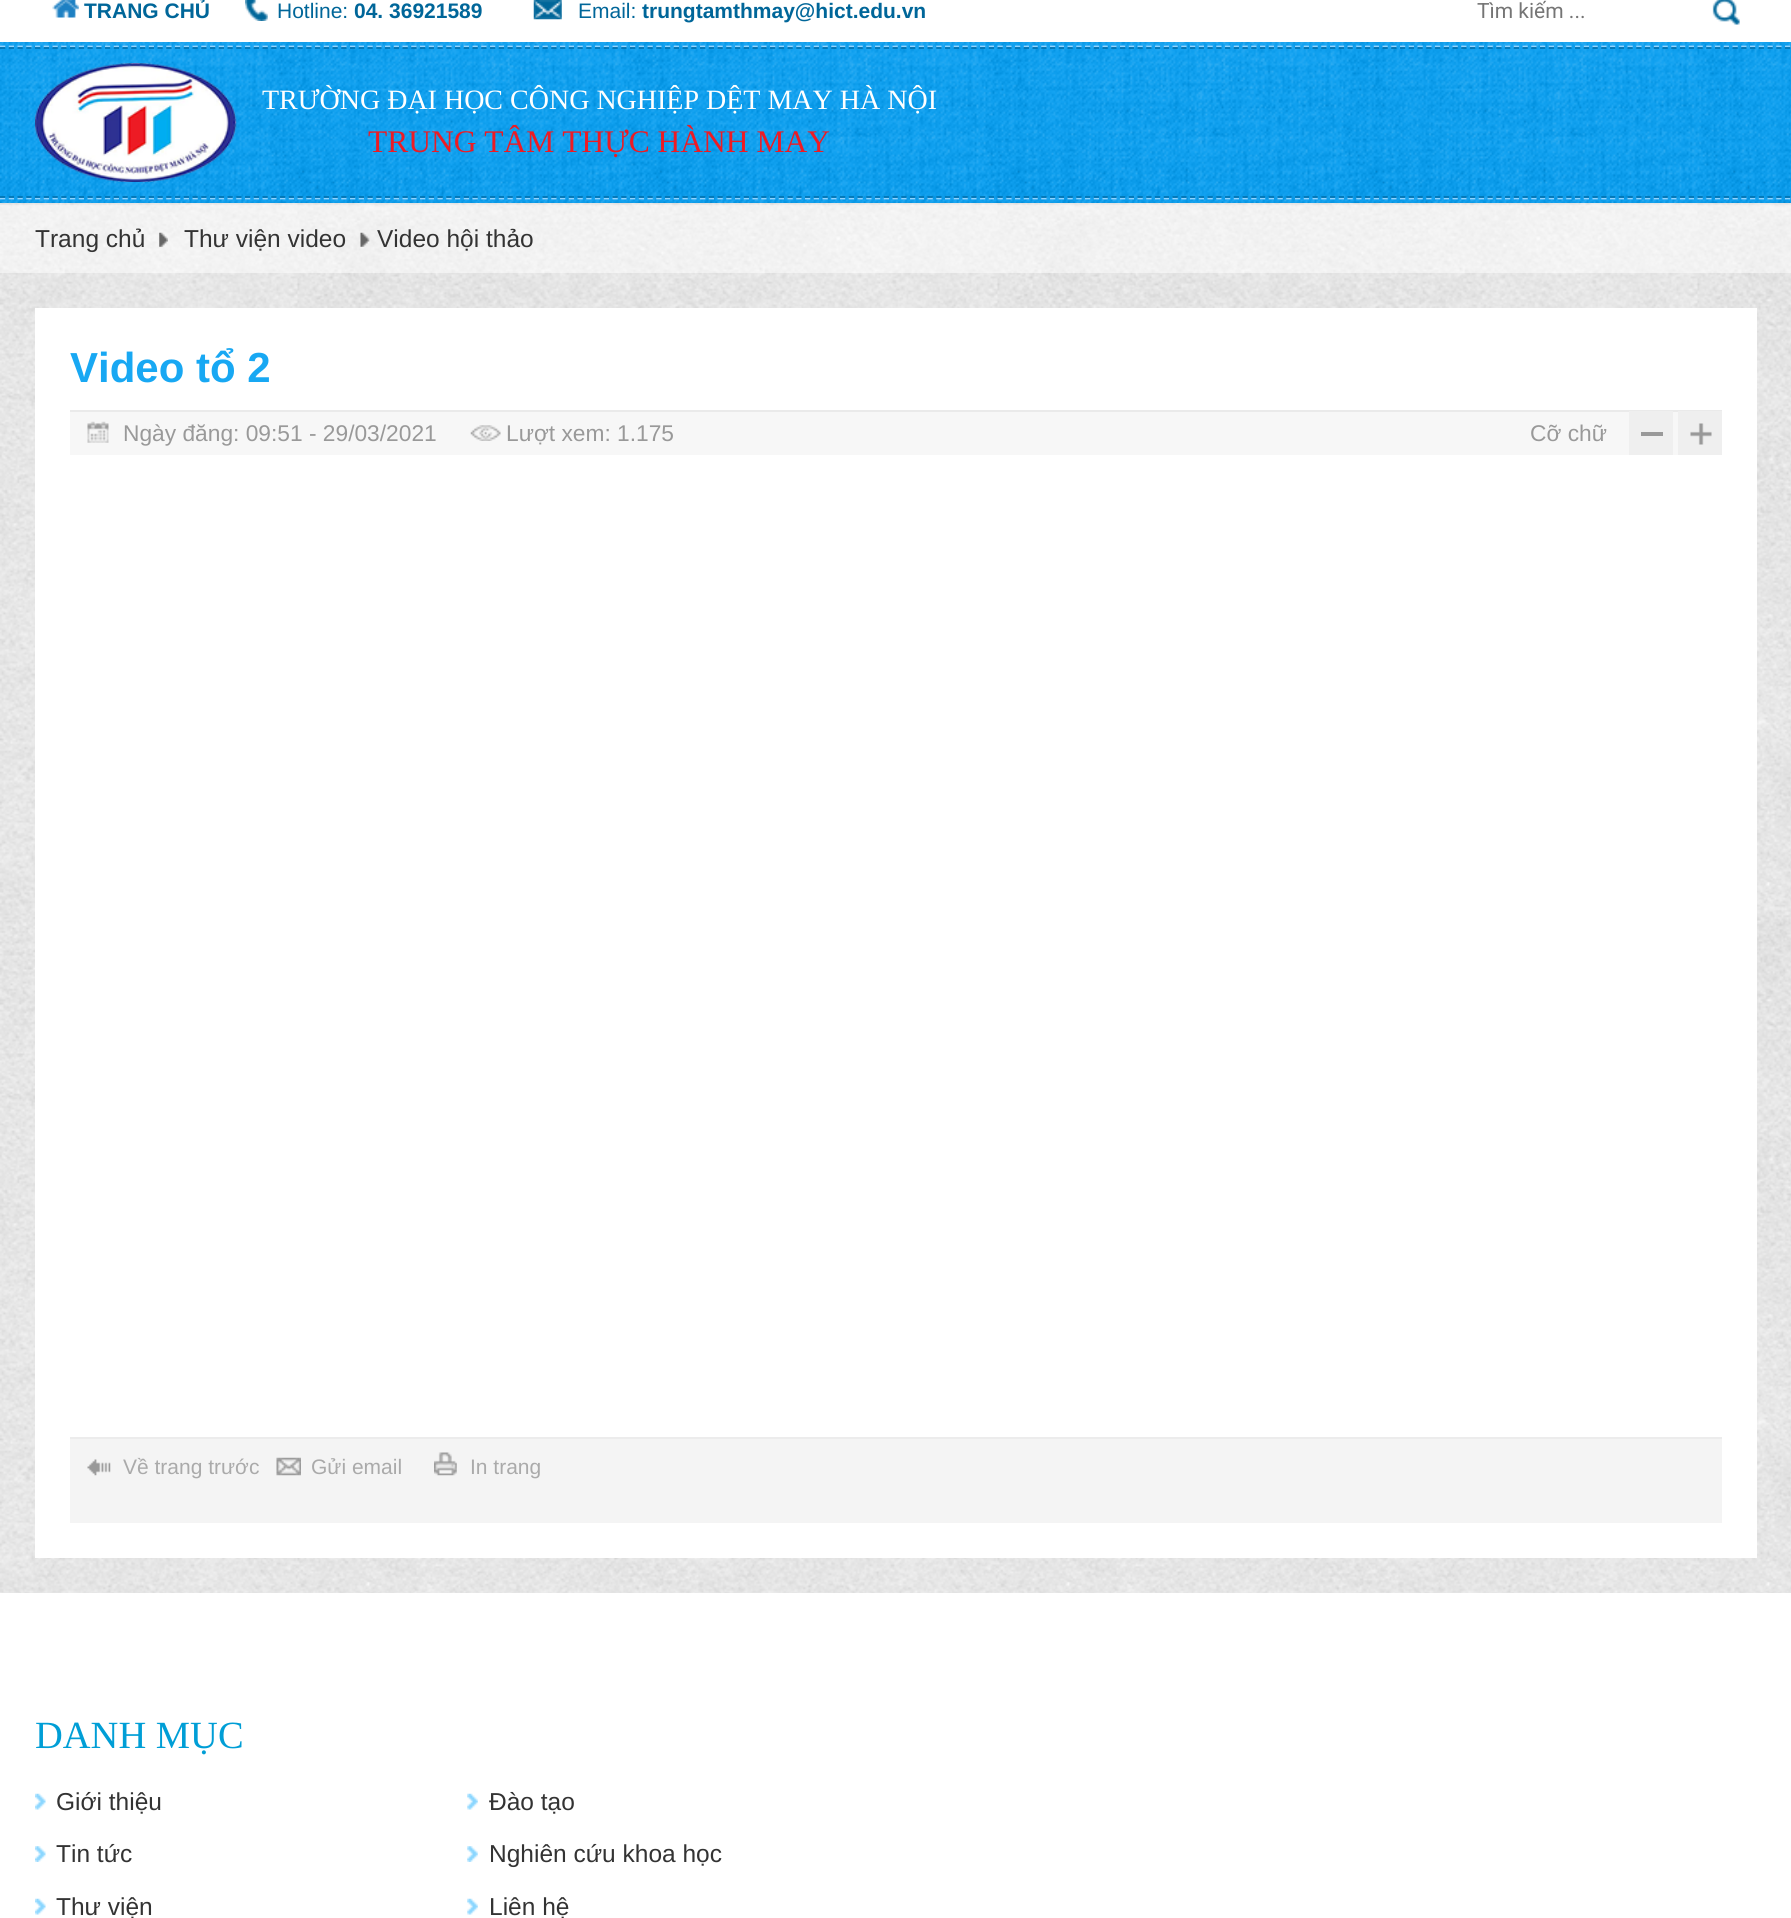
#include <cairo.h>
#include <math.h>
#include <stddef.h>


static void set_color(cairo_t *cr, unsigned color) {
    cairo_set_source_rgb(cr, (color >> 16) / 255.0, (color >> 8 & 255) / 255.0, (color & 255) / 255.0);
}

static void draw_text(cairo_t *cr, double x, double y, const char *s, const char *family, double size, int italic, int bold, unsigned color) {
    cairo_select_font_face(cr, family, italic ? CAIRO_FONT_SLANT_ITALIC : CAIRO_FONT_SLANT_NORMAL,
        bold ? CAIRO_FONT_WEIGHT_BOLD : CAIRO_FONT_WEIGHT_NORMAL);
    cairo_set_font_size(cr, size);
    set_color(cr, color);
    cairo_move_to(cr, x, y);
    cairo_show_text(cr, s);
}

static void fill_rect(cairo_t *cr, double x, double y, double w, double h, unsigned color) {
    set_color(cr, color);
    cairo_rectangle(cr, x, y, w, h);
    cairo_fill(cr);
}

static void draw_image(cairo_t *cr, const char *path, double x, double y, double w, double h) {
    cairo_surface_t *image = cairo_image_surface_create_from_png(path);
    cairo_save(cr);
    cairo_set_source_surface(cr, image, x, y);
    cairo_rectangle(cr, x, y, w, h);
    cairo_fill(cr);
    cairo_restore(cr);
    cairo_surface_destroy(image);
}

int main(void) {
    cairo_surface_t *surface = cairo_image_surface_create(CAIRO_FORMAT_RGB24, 1791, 1918);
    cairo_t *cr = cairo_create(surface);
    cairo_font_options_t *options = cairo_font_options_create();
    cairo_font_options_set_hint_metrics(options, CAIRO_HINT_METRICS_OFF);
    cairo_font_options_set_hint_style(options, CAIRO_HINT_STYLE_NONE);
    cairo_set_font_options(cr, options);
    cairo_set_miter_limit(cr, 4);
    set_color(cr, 0xFFFFFF);
    cairo_paint(cr);
    draw_image(cr, "assets/img1.png", 0, 42, 1791, 1551);
    draw_image(cr, "assets/img2.png", 52, 0, 27, 18);
    draw_text(cr, 84, 18, "TRANG CHỦ", "Liberation Sans", 21, 0, 1, 0x006699);
    draw_image(cr, "assets/img3.png", 245, 0, 23, 21);
    draw_text(cr, 277, 18, "Hotline:", "Liberation Sans", 21, 0, 0, 0x006699);
    draw_text(cr, 354, 18, "04. 36921589", "Liberation Sans", 21, 0, 1, 0x006699);
    draw_image(cr, "assets/img4.png", 533, 0, 29, 20);
    draw_text(cr, 578, 18, "Email:", "Liberation Sans", 21, 0, 0, 0x006699);
    draw_text(cr, 642, 18, "trungtamthmay@hict.edu.vn", "Liberation Sans", 21, 0, 1, 0x006699);
    draw_text(cr, 1477, 18, "Tìm kiếm ...", "Roboto", 21, 0, 0, 0x757575);
    draw_image(cr, "assets/img5.png", 1712, 0, 28, 25);
    draw_image(cr, "assets/img6.png", 0, 42, 1791, 161);
    cairo_new_path(cr);
    cairo_move_to(cr, 0, 46.5);
    cairo_line_to(cr, 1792, 46.5);
    set_color(cr, 0x91D3FF);
    cairo_set_line_width(cr, 1.8);
    cairo_set_dash(cr, (double[]){5.25, 3.5}, 2, 0);
    cairo_stroke(cr);
    cairo_new_path(cr);
    cairo_move_to(cr, 0, 198.5);
    cairo_line_to(cr, 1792, 198.5);
    cairo_stroke(cr);
    cairo_new_path(cr);
    cairo_move_to(cr, 0, 48);
    cairo_line_to(cr, 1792, 48);
    set_color(cr, 0x0274B2);
    cairo_stroke(cr);
    cairo_new_path(cr);
    cairo_move_to(cr, 0, 197);
    cairo_line_to(cr, 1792, 197);
    cairo_stroke(cr);
    draw_image(cr, "assets/img7.png", 35, 63, 202, 119);
    draw_text(cr, 262, 109, "TRƯỜNG ĐẠI HỌC CÔNG NGHIỆP DỆT MAY HÀ NỘI", "Liberation Serif", 28, 0, 0, 0xFFFFFF);
    draw_text(cr, 368, 152, "TRUNG TÂM THỰC HÀNH MAY", "Liberation Serif", 31.5, 0, 0, 0xED1B24);
    draw_image(cr, "assets/img8.png", 0, 204, 1791, 69);
    draw_text(cr, 35, 247, "Trang chủ", "Liberation Sans", 24.5, 0, 0, 0x333333);
    draw_image(cr, "assets/img9.png", 159, 232, 9, 15);
    draw_text(cr, 184, 247, "Thư viện video", "Liberation Sans", 24.5, 0, 0, 0x333333);
    draw_image(cr, "assets/img10.png", 360, 232, 10, 15);
    draw_text(cr, 377, 247, "Video hội thảo", "Liberation Sans", 24.5, 0, 0, 0x333333);
    fill_rect(cr, 35, 308, 1722, 1250, 0xFFFFFF);
    draw_text(cr, 70, 382, "Video tổ 2", "Liberation Sans", 42, 0, 1, 0x18A8F3);
    fill_rect(cr, 70, 412, 1608, 43, 0xF7F7F7);
    fill_rect(cr, 70, 410, 1652, 2, 0xEAEAEA);
    draw_image(cr, "assets/img11.png", 87, 421, 22, 22);
    draw_text(cr, 123, 441, "Ngày đăng: 09:51 - 29/03/2021", "Liberation Sans", 22.75, 0, 0, 0x999999);
    draw_image(cr, "assets/img12.png", 470, 425, 31, 16);
    draw_text(cr, 506, 441, "Lượt xem: 1.175", "Liberation Sans", 22.75, 0, 0, 0x999999);
    draw_text(cr, 1530, 441, "Cỡ chữ", "Liberation Sans", 22.75, 0, 0, 0x999999);
    fill_rect(cr, 1629, 411, 44, 44, 0xEFEFEF);
    fill_rect(cr, 1641, 432, 22, 4, 0x999999);
    fill_rect(cr, 1678, 411, 44, 44, 0xEFEFEF);
    draw_image(cr, "assets/img13.png", 1690, 423, 22, 22);
    fill_rect(cr, 70, 1439, 1652, 84, 0xF4F4F4);
    fill_rect(cr, 70, 1437, 1652, 2, 0xECECEC);
    draw_image(cr, "assets/img14.png", 87, 1459, 24, 17);
    draw_text(cr, 123, 1474, "Về trang trước", "Liberation Sans", 21, 0, 0, 0xAAAAAA);
    draw_image(cr, "assets/img15.png", 276, 1457, 25, 19);
    draw_text(cr, 311, 1474, "Gửi email", "Liberation Sans", 21, 0, 0, 0xAAAAAA);
    draw_image(cr, "assets/img16.png", 434, 1452, 23, 24);
    draw_text(cr, 470, 1474, "In trang", "Liberation Sans", 21, 0, 0, 0xAAAAAA);
    draw_text(cr, 35, 1748, "DANH MỤC", "Liberation Serif", 38.5, 0, 0, 0x009ED6);
    draw_image(cr, "assets/img17.png", 35, 1793, 11, 17);
    draw_text(cr, 56, 1810, "Giới thiệu", "Liberation Sans", 24.5, 0, 0, 0x333333);
    draw_image(cr, "assets/img18.png", 467, 1793, 11, 17);
    draw_text(cr, 489, 1810, "Đào tạo", "Liberation Sans", 24.5, 0, 0, 0x333333);
    draw_image(cr, "assets/img19.png", 35, 1846, 11, 16);
    draw_text(cr, 56, 1862, "Tin tức", "Liberation Sans", 24.5, 0, 0, 0x333333);
    draw_image(cr, "assets/img20.png", 467, 1846, 11, 16);
    draw_text(cr, 489, 1862, "Nghiên cứu khoa học", "Liberation Sans", 24.5, 0, 0, 0x333333);
    draw_image(cr, "assets/img17.png", 35, 1898, 11, 17);
    draw_text(cr, 56, 1915, "Thư viện", "Liberation Sans", 24.5, 0, 0, 0x333333);
    draw_image(cr, "assets/img18.png", 467, 1898, 11, 17);
    draw_text(cr, 489, 1915, "Liên hệ", "Liberation Sans", 24.5, 0, 0, 0x333333);
    cairo_surface_write_to_png(surface, "output.png");
    cairo_font_options_destroy(options);
    cairo_destroy(cr);
    cairo_surface_destroy(surface);
    return 0;
}
